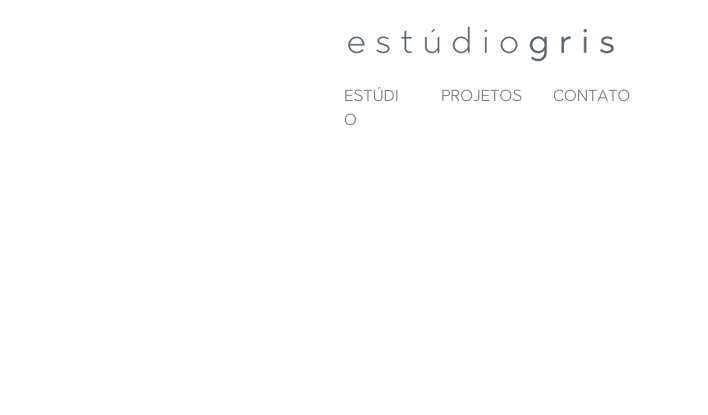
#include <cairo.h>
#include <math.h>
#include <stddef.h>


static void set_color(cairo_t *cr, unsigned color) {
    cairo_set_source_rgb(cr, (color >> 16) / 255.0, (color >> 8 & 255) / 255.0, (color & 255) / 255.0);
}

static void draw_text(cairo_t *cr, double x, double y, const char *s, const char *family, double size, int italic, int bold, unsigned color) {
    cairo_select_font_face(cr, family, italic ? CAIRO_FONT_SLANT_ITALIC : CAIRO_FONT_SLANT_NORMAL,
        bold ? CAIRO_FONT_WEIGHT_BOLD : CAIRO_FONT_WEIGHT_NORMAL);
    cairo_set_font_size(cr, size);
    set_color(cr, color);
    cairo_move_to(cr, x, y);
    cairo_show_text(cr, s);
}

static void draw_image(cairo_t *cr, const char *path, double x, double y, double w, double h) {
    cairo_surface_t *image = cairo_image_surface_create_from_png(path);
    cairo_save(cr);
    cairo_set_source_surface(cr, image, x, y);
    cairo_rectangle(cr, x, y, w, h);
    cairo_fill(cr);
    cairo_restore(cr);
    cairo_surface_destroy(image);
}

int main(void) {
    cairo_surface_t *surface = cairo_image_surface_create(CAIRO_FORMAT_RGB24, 708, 415);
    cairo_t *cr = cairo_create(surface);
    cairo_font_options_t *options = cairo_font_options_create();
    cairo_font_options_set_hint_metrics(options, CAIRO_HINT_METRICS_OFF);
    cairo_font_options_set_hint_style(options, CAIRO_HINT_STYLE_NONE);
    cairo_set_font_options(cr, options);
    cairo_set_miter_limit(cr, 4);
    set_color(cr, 0xFFFFFF);
    cairo_paint(cr);
    draw_image(cr, "assets/img1.png", 348, 26, 266, 36);
    draw_text(cr, 344, 101, "ESTÚDI", "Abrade", 16, 0, 0, 0x808080);
    draw_text(cr, 344, 125, "O", "Abrade", 16, 0, 0, 0x808080);
    draw_text(cr, 441, 101, "PROJETOS", "Abrade", 16, 0, 0, 0x808080);
    draw_text(cr, 553, 101, "CONTATO", "Abrade", 16, 0, 0, 0x808080);
    cairo_surface_write_to_png(surface, "output.png");
    cairo_font_options_destroy(options);
    cairo_destroy(cr);
    cairo_surface_destroy(surface);
    return 0;
}
